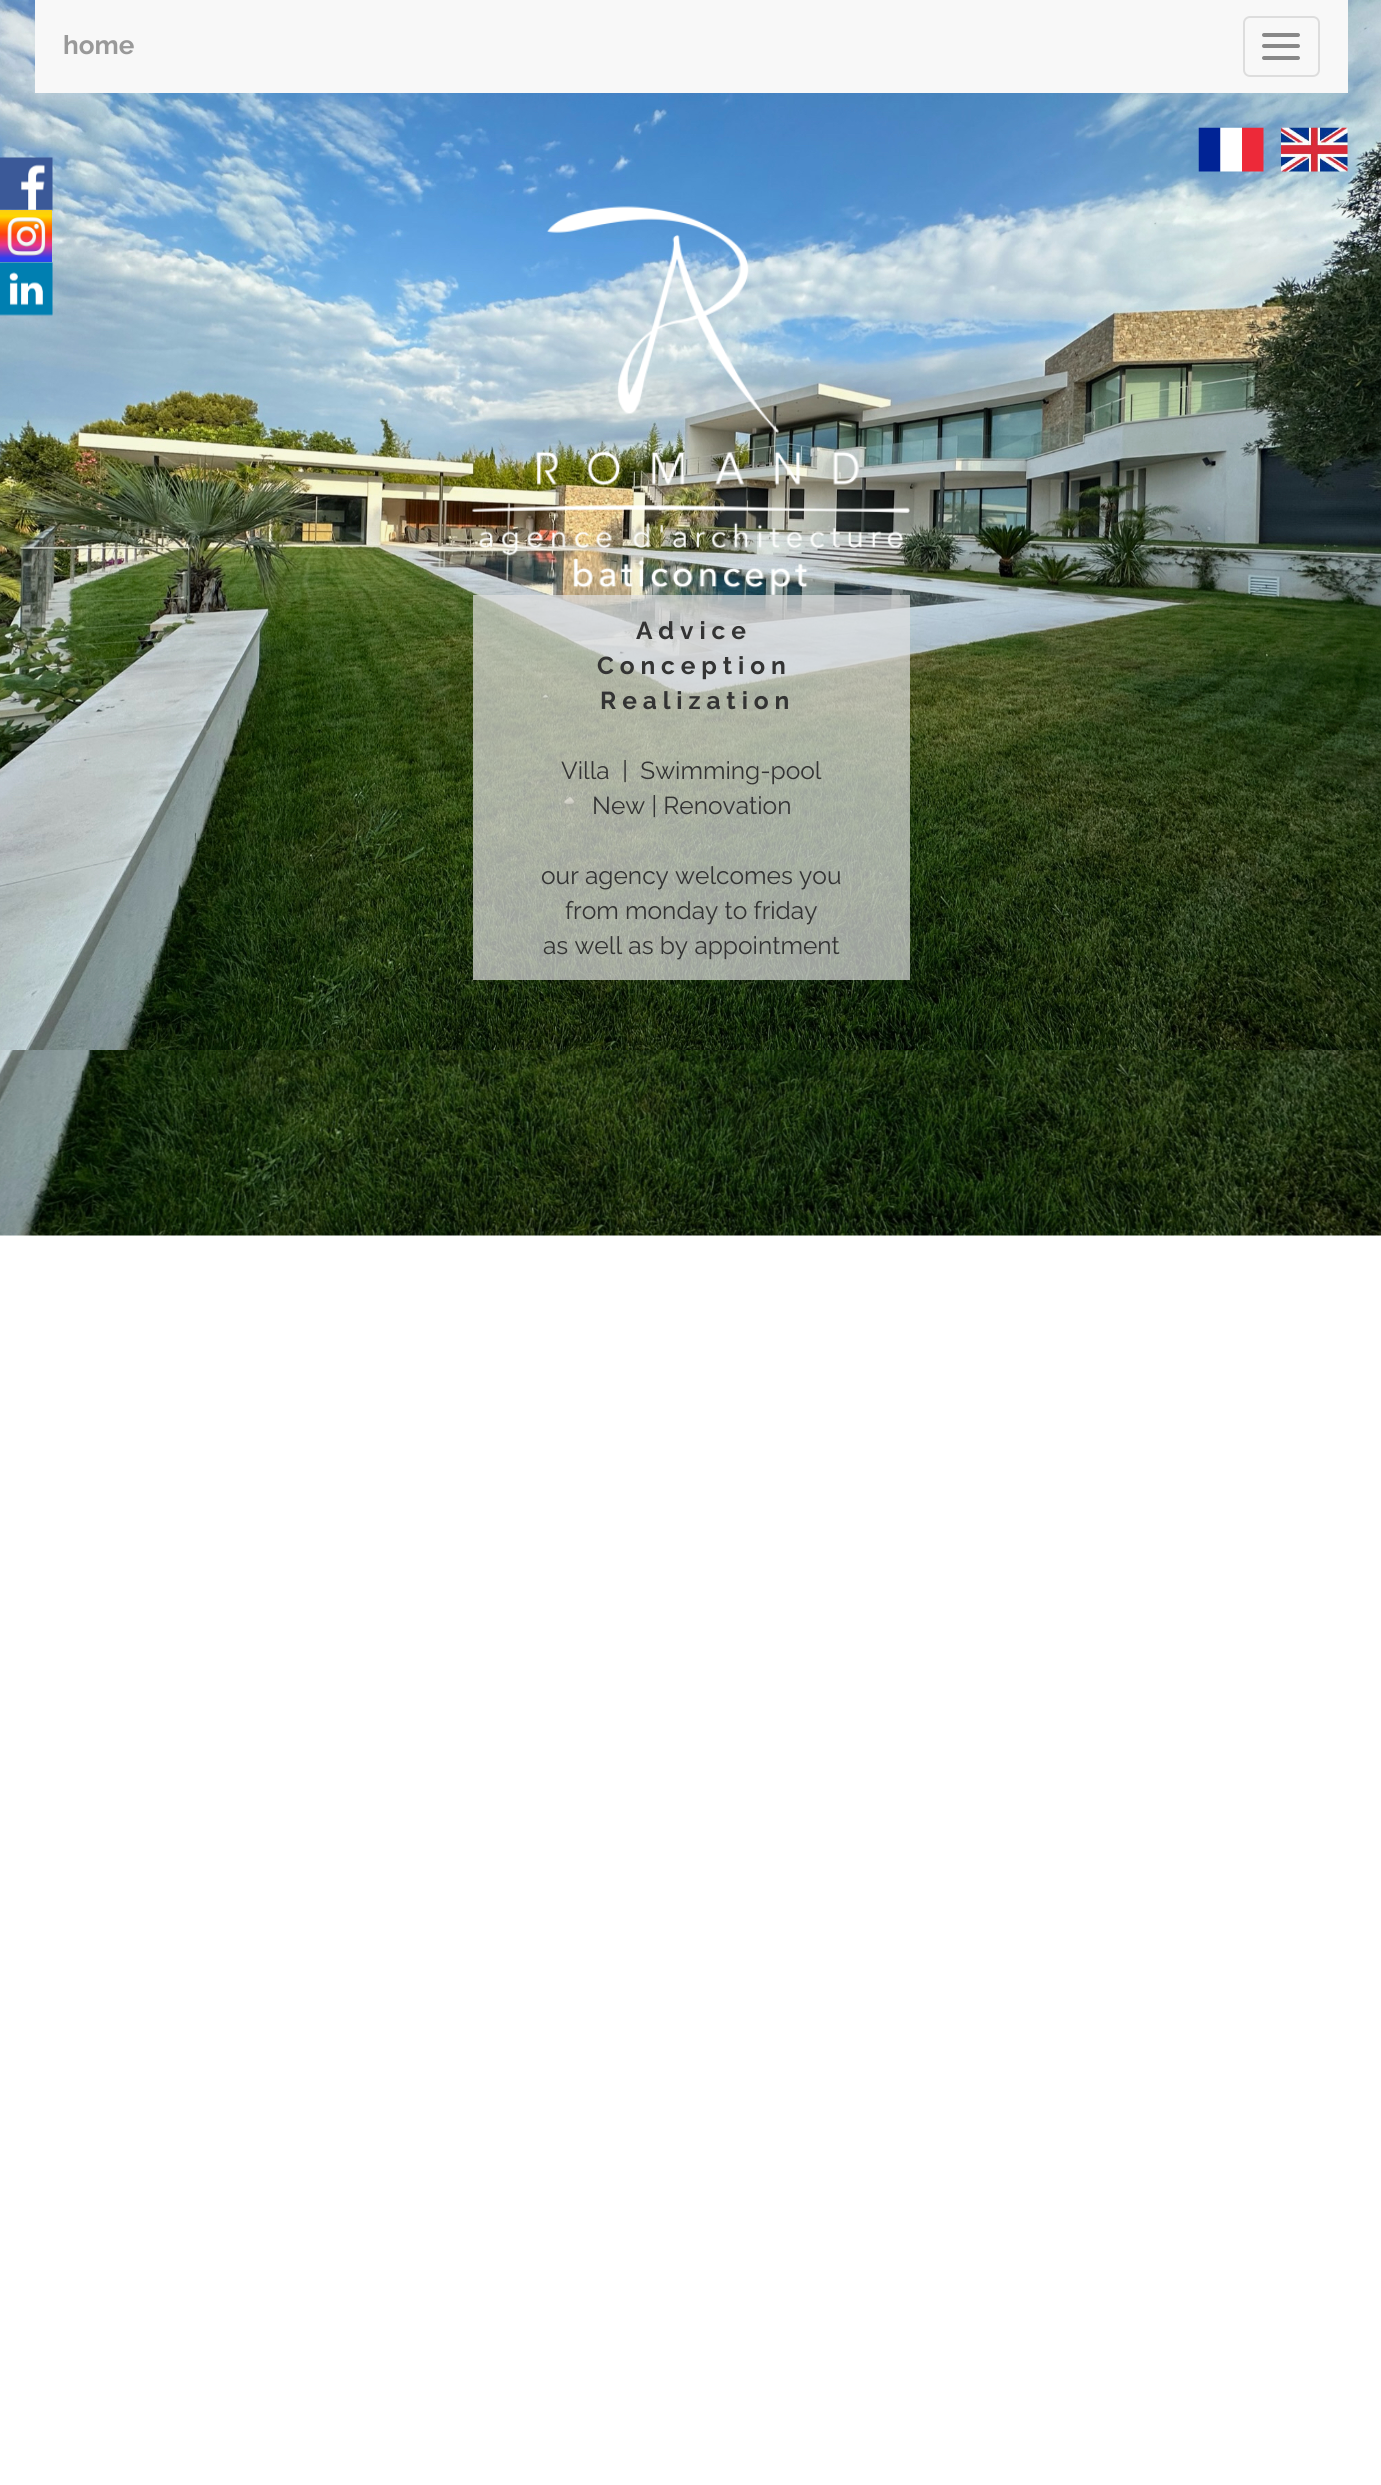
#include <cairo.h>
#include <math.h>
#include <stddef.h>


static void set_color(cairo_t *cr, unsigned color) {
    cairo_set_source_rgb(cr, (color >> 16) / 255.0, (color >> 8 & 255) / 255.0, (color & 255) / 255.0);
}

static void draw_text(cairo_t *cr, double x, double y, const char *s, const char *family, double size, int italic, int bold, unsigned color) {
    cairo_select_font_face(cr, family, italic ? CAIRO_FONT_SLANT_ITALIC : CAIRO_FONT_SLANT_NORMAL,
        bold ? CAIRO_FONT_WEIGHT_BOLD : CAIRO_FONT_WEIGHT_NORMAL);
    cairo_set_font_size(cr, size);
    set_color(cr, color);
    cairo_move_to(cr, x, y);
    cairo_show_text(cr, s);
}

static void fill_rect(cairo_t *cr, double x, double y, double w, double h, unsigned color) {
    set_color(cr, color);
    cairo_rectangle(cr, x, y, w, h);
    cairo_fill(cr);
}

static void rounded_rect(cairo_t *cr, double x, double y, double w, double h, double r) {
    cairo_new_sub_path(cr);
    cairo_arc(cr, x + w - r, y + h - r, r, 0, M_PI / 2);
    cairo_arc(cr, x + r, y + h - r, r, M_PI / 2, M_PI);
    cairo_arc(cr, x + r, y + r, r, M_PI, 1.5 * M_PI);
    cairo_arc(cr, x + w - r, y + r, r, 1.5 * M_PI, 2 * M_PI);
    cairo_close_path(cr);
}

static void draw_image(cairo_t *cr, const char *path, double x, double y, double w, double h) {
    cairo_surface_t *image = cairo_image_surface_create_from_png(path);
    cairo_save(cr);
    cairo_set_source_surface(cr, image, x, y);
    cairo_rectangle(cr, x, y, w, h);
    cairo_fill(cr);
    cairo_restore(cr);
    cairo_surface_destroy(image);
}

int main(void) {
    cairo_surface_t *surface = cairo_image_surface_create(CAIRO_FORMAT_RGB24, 1381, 2485);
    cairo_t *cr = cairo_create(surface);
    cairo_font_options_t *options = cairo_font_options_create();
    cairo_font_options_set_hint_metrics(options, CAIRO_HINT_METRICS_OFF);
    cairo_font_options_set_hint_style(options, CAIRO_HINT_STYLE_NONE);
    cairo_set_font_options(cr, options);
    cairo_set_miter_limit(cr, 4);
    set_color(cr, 0xFFFFFF);
    cairo_paint(cr);
    draw_image(cr, "assets/img4.png", 0, 0, 1381, 1050);
    draw_image(cr, "assets/img1.png", 0, 157, 53, 54);
    draw_image(cr, "assets/img2.png", 0, 210, 52, 52);
    draw_image(cr, "assets/img3.png", 0, 262, 53, 54);
    fill_rect(cr, 35, 0, 1313, 93, 0xF8F8F8);
    draw_text(cr, 63, 54, "home", "Raleway", 26, 0, 1, 0x999999);
    rounded_rect(cr, 1244, 17, 75, 59, 6);
    set_color(cr, 0xDDDDDD);
    cairo_stroke(cr);
    set_color(cr, 0x888888);
    rounded_rect(cr, 1262, 33, 38, 4, 2);
    cairo_fill(cr);
    rounded_rect(cr, 1262, 44, 38, 4, 2);
    cairo_fill(cr);
    rounded_rect(cr, 1262, 56, 38, 4, 2);
    cairo_fill(cr);
    draw_image(cr, "assets/img5.png", 1198, 127, 66, 45);
    draw_image(cr, "assets/img6.png", 1281, 127, 67, 45);
    draw_image(cr, "assets/img7.png", 472, 206, 438, 389);
    cairo_set_source_rgba(cr, 0.878, 0.878, 0.878, 0.7);
    cairo_rectangle(cr, 473, 595, 437, 385);
    cairo_fill(cr);
    draw_text(cr, 636, 639, "A d v i c e", "Raleway", 24.5, 0, 1, 0x333333);
    draw_text(cr, 597, 674, "C o n c e p t i o n", "Raleway", 24.5, 0, 1, 0x333333);
    draw_text(cr, 600, 709, "R e a l i z a t i o n", "Raleway", 24.5, 0, 1, 0x333333);
    draw_text(cr, 561, 779, "Villa  |  Swimming-pool", "Raleway", 24.5, 0, 0, 0x333333);
    draw_text(cr, 592, 814, "New | Renovation", "Raleway", 24.5, 0, 0, 0x333333);
    draw_text(cr, 541, 884, "our agency welcomes you", "Raleway", 24.5, 0, 0, 0x333333);
    draw_text(cr, 565, 919, "from monday to friday", "Raleway", 24.5, 0, 0, 0x333333);
    draw_text(cr, 543, 954, "as well as by appointment", "Raleway", 24.5, 0, 0, 0x333333);
    draw_image(cr, "assets/img8.png", 0, 1050, 1381, 186);
    cairo_surface_write_to_png(surface, "output.png");
    cairo_font_options_destroy(options);
    cairo_destroy(cr);
    cairo_surface_destroy(surface);
    return 0;
}
